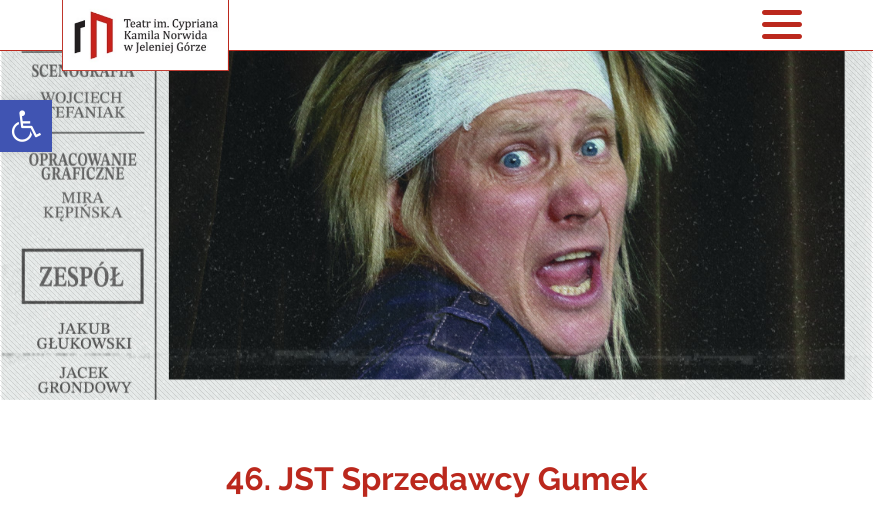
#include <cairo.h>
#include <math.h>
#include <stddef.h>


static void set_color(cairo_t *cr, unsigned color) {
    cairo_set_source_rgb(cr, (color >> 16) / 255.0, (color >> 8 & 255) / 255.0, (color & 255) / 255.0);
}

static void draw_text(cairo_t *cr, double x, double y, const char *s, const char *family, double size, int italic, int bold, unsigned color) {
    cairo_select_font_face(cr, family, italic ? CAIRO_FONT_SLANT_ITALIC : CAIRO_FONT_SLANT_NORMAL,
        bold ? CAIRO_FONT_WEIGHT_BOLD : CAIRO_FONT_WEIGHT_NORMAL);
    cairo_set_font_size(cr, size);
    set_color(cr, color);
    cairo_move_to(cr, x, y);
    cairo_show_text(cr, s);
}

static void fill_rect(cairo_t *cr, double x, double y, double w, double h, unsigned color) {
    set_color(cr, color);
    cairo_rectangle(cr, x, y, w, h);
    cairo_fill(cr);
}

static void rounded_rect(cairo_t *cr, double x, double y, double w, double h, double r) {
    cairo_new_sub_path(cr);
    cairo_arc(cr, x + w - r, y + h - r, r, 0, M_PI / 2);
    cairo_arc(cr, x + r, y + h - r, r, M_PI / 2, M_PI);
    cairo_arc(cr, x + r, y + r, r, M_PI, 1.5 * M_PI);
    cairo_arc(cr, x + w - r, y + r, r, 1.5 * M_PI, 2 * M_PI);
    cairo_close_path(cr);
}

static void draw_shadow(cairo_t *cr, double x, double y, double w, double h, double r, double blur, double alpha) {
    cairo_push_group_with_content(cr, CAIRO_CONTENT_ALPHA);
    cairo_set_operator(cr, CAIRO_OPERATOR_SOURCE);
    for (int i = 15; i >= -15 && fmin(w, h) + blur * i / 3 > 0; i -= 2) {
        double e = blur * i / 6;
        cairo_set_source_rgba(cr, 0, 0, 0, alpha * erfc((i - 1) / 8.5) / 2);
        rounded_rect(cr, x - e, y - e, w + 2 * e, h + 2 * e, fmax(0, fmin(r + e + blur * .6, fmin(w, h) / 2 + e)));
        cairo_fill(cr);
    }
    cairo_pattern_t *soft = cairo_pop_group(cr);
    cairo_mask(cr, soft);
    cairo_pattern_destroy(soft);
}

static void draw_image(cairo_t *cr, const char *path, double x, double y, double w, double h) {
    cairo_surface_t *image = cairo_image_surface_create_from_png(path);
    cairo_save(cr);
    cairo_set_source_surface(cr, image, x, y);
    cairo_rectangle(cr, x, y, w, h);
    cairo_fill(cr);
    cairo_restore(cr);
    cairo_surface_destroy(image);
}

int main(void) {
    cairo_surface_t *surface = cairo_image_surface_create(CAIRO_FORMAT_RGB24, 873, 525);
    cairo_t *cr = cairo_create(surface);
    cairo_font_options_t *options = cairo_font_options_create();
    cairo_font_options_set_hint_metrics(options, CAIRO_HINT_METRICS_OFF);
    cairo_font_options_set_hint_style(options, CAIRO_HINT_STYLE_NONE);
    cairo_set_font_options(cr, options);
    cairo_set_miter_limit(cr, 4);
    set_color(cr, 0xFFFFFF);
    cairo_paint(cr);
    fill_rect(cr, 0, 50, 873, 1, 0xBB281D);
    draw_image(cr, "assets/img3.png", 1, 51, 871, 349);
    draw_image(cr, "assets/img2.png", 0, 51, 873, 349);
    fill_rect(cr, 228, 0, 1, 71, 0xBB281D);
    fill_rect(cr, 62, 70, 167, 1, 0xBB281D);
    fill_rect(cr, 62, 0, 1, 71, 0xBB281D);
    draw_image(cr, "assets/img1.png", 62, 0, 166, 71);
    rounded_rect(cr, 762, 10, 40, 5, 2.5);
    cairo_fill(cr);
    rounded_rect(cr, 762, 22, 40, 5, 2.5);
    cairo_fill(cr);
    rounded_rect(cr, 762, 34, 40, 5, 2.5);
    cairo_fill(cr);
    set_color(cr, 0x000000);
    draw_shadow(cr, 0, 100, 52, 52, 0, 5, 0.1);
    fill_rect(cr, 0, 100, 52, 52, 0x4054B2);
    draw_image(cr, "assets/img4.png", 11, 110, 30, 32);
    draw_text(cr, 226, 490, "46. JST Sprzedawcy Gumek", "Raleway", 32, 0, 1, 0xBB281D);
    cairo_surface_write_to_png(surface, "output.png");
    cairo_font_options_destroy(options);
    cairo_destroy(cr);
    cairo_surface_destroy(surface);
    return 0;
}
